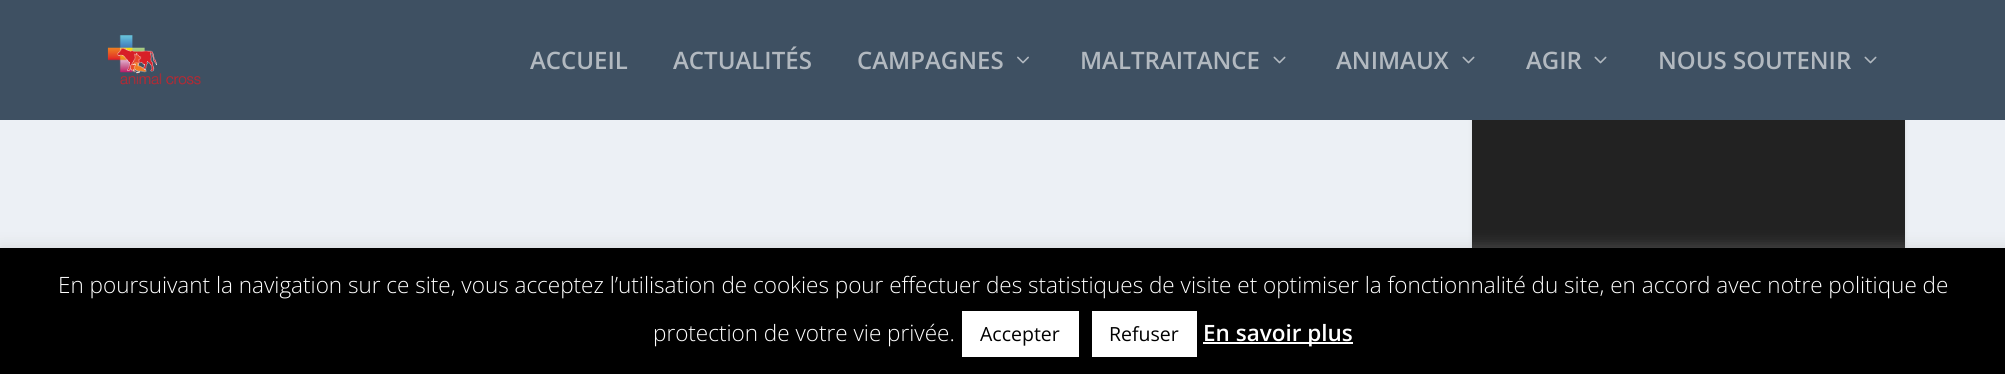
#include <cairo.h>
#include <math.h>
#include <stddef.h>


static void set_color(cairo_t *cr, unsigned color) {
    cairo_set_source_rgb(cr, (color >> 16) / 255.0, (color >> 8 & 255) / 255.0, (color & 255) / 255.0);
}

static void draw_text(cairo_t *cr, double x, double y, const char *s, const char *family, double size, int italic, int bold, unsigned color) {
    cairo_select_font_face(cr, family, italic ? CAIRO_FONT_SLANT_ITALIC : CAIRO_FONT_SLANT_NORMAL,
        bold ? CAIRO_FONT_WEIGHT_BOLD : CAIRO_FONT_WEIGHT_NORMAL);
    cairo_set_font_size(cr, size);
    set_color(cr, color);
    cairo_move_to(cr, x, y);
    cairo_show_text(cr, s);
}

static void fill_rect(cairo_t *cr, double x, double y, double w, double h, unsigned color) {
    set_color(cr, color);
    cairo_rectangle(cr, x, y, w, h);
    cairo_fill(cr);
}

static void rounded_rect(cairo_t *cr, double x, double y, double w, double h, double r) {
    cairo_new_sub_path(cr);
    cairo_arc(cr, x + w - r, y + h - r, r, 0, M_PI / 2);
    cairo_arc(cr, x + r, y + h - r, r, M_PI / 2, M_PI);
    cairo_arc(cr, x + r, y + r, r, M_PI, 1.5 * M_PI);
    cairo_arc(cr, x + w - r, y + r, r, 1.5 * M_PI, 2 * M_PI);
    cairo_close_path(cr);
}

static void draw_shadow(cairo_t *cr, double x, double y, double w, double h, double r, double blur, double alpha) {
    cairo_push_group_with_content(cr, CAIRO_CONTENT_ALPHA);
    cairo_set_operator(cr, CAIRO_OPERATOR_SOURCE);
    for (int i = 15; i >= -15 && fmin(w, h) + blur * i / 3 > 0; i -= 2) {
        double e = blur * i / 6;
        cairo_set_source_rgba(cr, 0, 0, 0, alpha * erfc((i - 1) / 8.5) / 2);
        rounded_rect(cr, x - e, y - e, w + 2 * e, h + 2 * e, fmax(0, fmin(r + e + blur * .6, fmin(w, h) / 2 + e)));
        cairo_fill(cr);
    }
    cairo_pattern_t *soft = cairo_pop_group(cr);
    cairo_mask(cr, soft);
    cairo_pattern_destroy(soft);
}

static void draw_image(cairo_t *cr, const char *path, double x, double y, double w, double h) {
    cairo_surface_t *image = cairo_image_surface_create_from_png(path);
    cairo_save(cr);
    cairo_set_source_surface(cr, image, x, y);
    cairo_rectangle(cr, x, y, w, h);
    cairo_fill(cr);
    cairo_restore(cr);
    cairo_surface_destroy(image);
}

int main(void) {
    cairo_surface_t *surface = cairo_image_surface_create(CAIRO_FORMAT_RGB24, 2005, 374);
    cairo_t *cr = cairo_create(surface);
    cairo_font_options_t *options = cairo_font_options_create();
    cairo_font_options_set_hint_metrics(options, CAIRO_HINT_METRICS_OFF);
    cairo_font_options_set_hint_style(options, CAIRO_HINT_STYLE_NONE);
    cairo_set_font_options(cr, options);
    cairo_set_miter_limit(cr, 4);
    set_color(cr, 0xECF0F5);
    cairo_paint(cr);
    set_color(cr, 0x000000);
    draw_shadow(cr, 1472, -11, 433, 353, 5, 2, 0.1);
    fill_rect(cr, 1472, 120, 433, 128, 0x222222);
    fill_rect(cr, 0, 0, 2005, 120, 0x3E5062);
    draw_image(cr, "assets/img1.png", 107, 35, 94, 50);
    draw_text(cr, 530, 69, "ACCUEIL", "Open Sans SemiBold", 24, 0, 0, 0xB2B9C0);
    draw_text(cr, 673, 69, "ACTUALITÉS", "Open Sans SemiBold", 24, 0, 0, 0xB2B9C0);
    draw_text(cr, 857, 69, "CAMPAGNES", "Open Sans SemiBold", 24, 0, 0, 0xB2B9C0);
    draw_image(cr, "assets/img2.png", 1017, 56, 12, 8);
    draw_text(cr, 1080, 69, "MALTRAITANCE", "Open Sans SemiBold", 24, 0, 0, 0xB2B9C0);
    draw_image(cr, "assets/img3.png", 1273, 56, 13, 8);
    draw_text(cr, 1336, 69, "ANIMAUX", "Open Sans SemiBold", 24, 0, 0, 0xB2B9C0);
    draw_image(cr, "assets/img3.png", 1462, 56, 13, 8);
    draw_text(cr, 1526, 69, "AGIR", "Open Sans SemiBold", 24, 0, 0, 0xB2B9C0);
    draw_image(cr, "assets/img3.png", 1594, 56, 13, 8);
    draw_text(cr, 1658, 69, "NOUS SOUTENIR", "Open Sans SemiBold", 24, 0, 0, 0xB2B9C0);
    draw_image(cr, "assets/img3.png", 1864, 56, 13, 8);
    set_color(cr, 0xACABAB);
    draw_shadow(cr, 0, 246, 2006, 128, 0, 7.5, 0.3);
    fill_rect(cr, 0, 248, 2005, 126, 0x000000);
    draw_text(cr, 58, 293, "En poursuivant la navigation sur ce site, vous acceptez l’utilisation de cookies pour effectuer des statistiques de visite et optimiser la fonctionnalité du site, en accord avec notre politique de", "Open Sans Light", 22.5, 0, 0, 0xFFFFFF);
    draw_text(cr, 653, 341, "protection de votre vie privée.", "Open Sans Light", 22.5, 0, 0, 0xFFFFFF);
    fill_rect(cr, 962, 311, 117, 46, 0xFFFFFF);
    draw_text(cr, 980, 341, "Accepter", "Open Sans", 19.5, 0, 0, 0x000000);
    fill_rect(cr, 1092, 311, 105, 46, 0xFFFFFF);
    draw_text(cr, 1109, 341, "Refuser", "Open Sans", 19.5, 0, 0, 0x000000);
    fill_rect(cr, 1203, 342, 150, 2, 0xFFFFFF);
    draw_text(cr, 1203, 341, "En savoir plus", "Open Sans SemiBold", 22.5, 0, 0, 0xFFFFFF);
    cairo_surface_write_to_png(surface, "output.png");
    cairo_font_options_destroy(options);
    cairo_destroy(cr);
    cairo_surface_destroy(surface);
    return 0;
}
